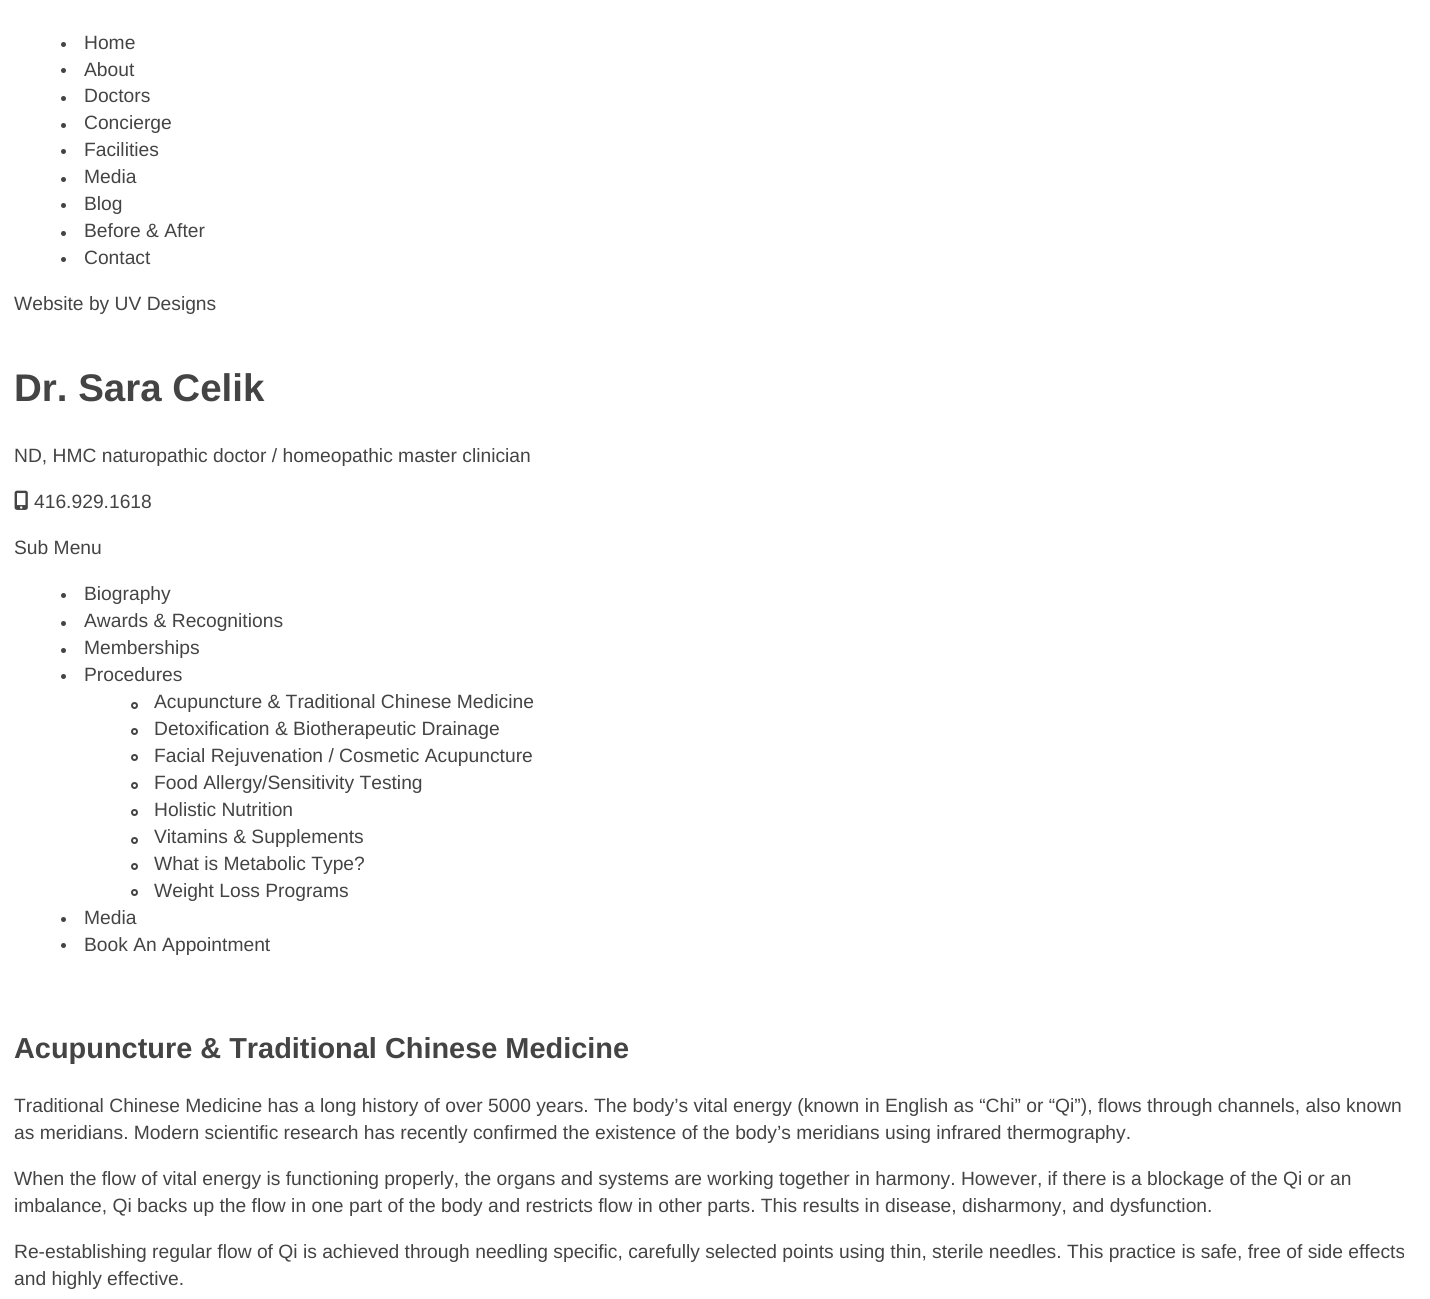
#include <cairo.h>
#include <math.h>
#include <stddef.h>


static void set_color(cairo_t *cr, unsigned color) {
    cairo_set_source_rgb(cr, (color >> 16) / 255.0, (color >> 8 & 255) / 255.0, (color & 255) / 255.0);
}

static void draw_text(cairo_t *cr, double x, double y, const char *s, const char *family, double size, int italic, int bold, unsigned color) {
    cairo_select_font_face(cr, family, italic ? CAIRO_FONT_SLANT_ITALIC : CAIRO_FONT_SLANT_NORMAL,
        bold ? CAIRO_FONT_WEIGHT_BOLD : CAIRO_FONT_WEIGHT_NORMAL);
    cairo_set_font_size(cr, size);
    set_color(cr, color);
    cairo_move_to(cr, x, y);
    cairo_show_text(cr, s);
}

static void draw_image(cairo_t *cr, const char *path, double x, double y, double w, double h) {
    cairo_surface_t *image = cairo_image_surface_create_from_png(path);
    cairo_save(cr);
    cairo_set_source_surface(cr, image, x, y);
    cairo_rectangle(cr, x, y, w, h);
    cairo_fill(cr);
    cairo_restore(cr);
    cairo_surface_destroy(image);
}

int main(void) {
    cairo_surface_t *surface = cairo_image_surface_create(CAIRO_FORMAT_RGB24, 1430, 1299);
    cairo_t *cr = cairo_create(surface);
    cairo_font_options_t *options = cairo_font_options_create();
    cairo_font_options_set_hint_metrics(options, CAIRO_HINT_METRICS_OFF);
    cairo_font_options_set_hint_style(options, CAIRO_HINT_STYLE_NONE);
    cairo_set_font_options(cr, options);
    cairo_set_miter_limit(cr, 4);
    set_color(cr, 0xFFFFFF);
    cairo_paint(cr);
    set_color(cr, 0x444444);
    cairo_arc(cr, 63.5, 44.5, 2.5, 0, 2 * M_PI);
    cairo_fill(cr);
    draw_text(cr, 84, 49, "Home", "Liberation Sans", 19.25, 0, 0, 0x444444);
    cairo_new_path(cr);
    cairo_arc(cr, 63.5, 70.5, 2.5, 0, 2 * M_PI);
    cairo_fill(cr);
    draw_text(cr, 84, 76, "About", "Liberation Sans", 19.25, 0, 0, 0x444444);
    cairo_new_path(cr);
    cairo_arc(cr, 63.5, 98.5, 2.5, 0, 2 * M_PI);
    cairo_fill(cr);
    draw_text(cr, 84, 102, "Doctors", "Liberation Sans", 19.25, 0, 0, 0x444444);
    cairo_new_path(cr);
    cairo_arc(cr, 63.5, 125.5, 2.5, 0, 2 * M_PI);
    cairo_fill(cr);
    draw_text(cr, 84, 129, "Concierge", "Liberation Sans", 19.25, 0, 0, 0x444444);
    cairo_new_path(cr);
    cairo_arc(cr, 63.5, 151.5, 2.5, 0, 2 * M_PI);
    cairo_fill(cr);
    draw_text(cr, 84, 156, "Facilities", "Liberation Sans", 19.25, 0, 0, 0x444444);
    cairo_new_path(cr);
    cairo_arc(cr, 63.5, 179.5, 2.5, 0, 2 * M_PI);
    cairo_fill(cr);
    draw_text(cr, 84, 183, "Media", "Liberation Sans", 19.25, 0, 0, 0x444444);
    cairo_new_path(cr);
    cairo_arc(cr, 63.5, 205.5, 2.5, 0, 2 * M_PI);
    cairo_fill(cr);
    draw_text(cr, 84, 210, "Blog", "Liberation Sans", 19.25, 0, 0, 0x444444);
    cairo_new_path(cr);
    cairo_arc(cr, 63.5, 233.5, 2.5, 0, 2 * M_PI);
    cairo_fill(cr);
    draw_text(cr, 84, 237, "Before & After", "Liberation Sans", 19.25, 0, 0, 0x444444);
    cairo_new_path(cr);
    cairo_arc(cr, 63.5, 259.5, 2.5, 0, 2 * M_PI);
    cairo_fill(cr);
    draw_text(cr, 84, 264, "Contact", "Liberation Sans", 19.25, 0, 0, 0x444444);
    draw_text(cr, 14, 310, "Website by UV Designs", "Liberation Sans", 19.25, 0, 0, 0x444444);
    draw_text(cr, 14, 401, "Dr. Sara Celik", "Liberation Sans", 38.5, 0, 1, 0x444444);
    draw_text(cr, 14, 462, "ND, HMC naturopathic doctor / homeopathic master clinician", "Liberation Sans", 19.25, 0, 0, 0x444444);
    draw_image(cr, "assets/img1.png", 14, 490, 14, 20);
    draw_text(cr, 34, 508, "416.929.1618", "Liberation Sans", 19.25, 0, 0, 0x444444);
    draw_text(cr, 14, 554, "Sub Menu", "Liberation Sans", 19.25, 0, 0, 0x444444);
    cairo_new_path(cr);
    cairo_arc(cr, 63.5, 595.5, 2.5, 0, 2 * M_PI);
    cairo_fill(cr);
    draw_text(cr, 84, 600, "Biography", "Liberation Sans", 19.25, 0, 0, 0x444444);
    cairo_new_path(cr);
    cairo_arc(cr, 63.5, 623.5, 2.5, 0, 2 * M_PI);
    cairo_fill(cr);
    draw_text(cr, 84, 627, "Awards & Recognitions", "Liberation Sans", 19.25, 0, 0, 0x444444);
    cairo_new_path(cr);
    cairo_arc(cr, 63.5, 650.5, 2.5, 0, 2 * M_PI);
    cairo_fill(cr);
    draw_text(cr, 84, 654, "Memberships", "Liberation Sans", 19.25, 0, 0, 0x444444);
    cairo_new_path(cr);
    cairo_arc(cr, 63.5, 676.5, 2.5, 0, 2 * M_PI);
    cairo_fill(cr);
    draw_text(cr, 84, 681, "Procedures", "Liberation Sans", 19.25, 0, 0, 0x444444);
    cairo_new_path(cr);
    cairo_arc(cr, 134.5, 705.5, 2.5, 0, 2 * M_PI);
    cairo_stroke(cr);
    draw_text(cr, 154, 708, "Acupuncture & Traditional Chinese Medicine", "Liberation Sans", 19.25, 0, 0, 0x444444);
    cairo_new_path(cr);
    cairo_arc(cr, 134.5, 731.5, 2.5, 0, 2 * M_PI);
    cairo_stroke(cr);
    draw_text(cr, 154, 735, "Detoxification & Biotherapeutic Drainage", "Liberation Sans", 19.25, 0, 0, 0x444444);
    cairo_new_path(cr);
    cairo_arc(cr, 134.5, 757.5, 2.5, 0, 2 * M_PI);
    cairo_stroke(cr);
    draw_text(cr, 154, 762, "Facial Rejuvenation / Cosmetic Acupuncture", "Liberation Sans", 19.25, 0, 0, 0x444444);
    cairo_new_path(cr);
    cairo_arc(cr, 134.5, 785.5, 2.5, 0, 2 * M_PI);
    cairo_stroke(cr);
    draw_text(cr, 154, 789, "Food Allergy/Sensitivity Testing", "Liberation Sans", 19.25, 0, 0, 0x444444);
    cairo_new_path(cr);
    cairo_arc(cr, 134.5, 812.5, 2.5, 0, 2 * M_PI);
    cairo_stroke(cr);
    draw_text(cr, 154, 816, "Holistic Nutrition", "Liberation Sans", 19.25, 0, 0, 0x444444);
    cairo_new_path(cr);
    cairo_arc(cr, 134.5, 840.5, 2.5, 0, 2 * M_PI);
    cairo_stroke(cr);
    draw_text(cr, 154, 843, "Vitamins & Supplements", "Liberation Sans", 19.25, 0, 0, 0x444444);
    cairo_new_path(cr);
    cairo_arc(cr, 134.5, 866.5, 2.5, 0, 2 * M_PI);
    cairo_stroke(cr);
    draw_text(cr, 154, 870, "What is Metabolic Type?", "Liberation Sans", 19.25, 0, 0, 0x444444);
    cairo_new_path(cr);
    cairo_arc(cr, 134.5, 892.5, 2.5, 0, 2 * M_PI);
    cairo_stroke(cr);
    draw_text(cr, 154, 897, "Weight Loss Programs", "Liberation Sans", 19.25, 0, 0, 0x444444);
    cairo_new_path(cr);
    cairo_arc(cr, 63.5, 919.5, 2.5, 0, 2 * M_PI);
    cairo_fill(cr);
    draw_text(cr, 84, 924, "Media", "Liberation Sans", 19.25, 0, 0, 0x444444);
    cairo_new_path(cr);
    cairo_arc(cr, 63.5, 945.5, 2.5, 0, 2 * M_PI);
    cairo_fill(cr);
    draw_text(cr, 84, 951, "Book An Appointment", "Liberation Sans", 19.25, 0, 0, 0x444444);
    draw_text(cr, 14, 1058, "Acupuncture & Traditional Chinese Medicine", "Liberation Sans", 28.9, 0, 1, 0x444444);
    draw_text(cr, 14, 1112, "Traditional Chinese Medicine has a long history of over 5000 years. The body’s vital energy (known in English as “Chi” or “Qi”), flows through channels, also known", "Liberation Sans", 19.25, 0, 0, 0x444444);
    draw_text(cr, 14, 1139, "as meridians. Modern scientific research has recently confirmed the existence of the body’s meridians using infrared thermography.", "Liberation Sans", 19.25, 0, 0, 0x444444);
    draw_text(cr, 14, 1185, "When the flow of vital energy is functioning properly, the organs and systems are working together in harmony. However, if there is a blockage of the Qi or an", "Liberation Sans", 19.25, 0, 0, 0x444444);
    draw_text(cr, 14, 1212, "imbalance, Qi backs up the flow in one part of the body and restricts flow in other parts. This results in disease, disharmony, and dysfunction.", "Liberation Sans", 19.25, 0, 0, 0x444444);
    draw_text(cr, 14, 1258, "Re-establishing regular flow of Qi is achieved through needling specific, carefully selected points using thin, sterile needles. This practice is safe, free of side effects", "Liberation Sans", 19.25, 0, 0, 0x444444);
    draw_text(cr, 14, 1285, "and highly effective.", "Liberation Sans", 19.25, 0, 0, 0x444444);
    cairo_surface_write_to_png(surface, "output.png");
    cairo_font_options_destroy(options);
    cairo_destroy(cr);
    cairo_surface_destroy(surface);
    return 0;
}
